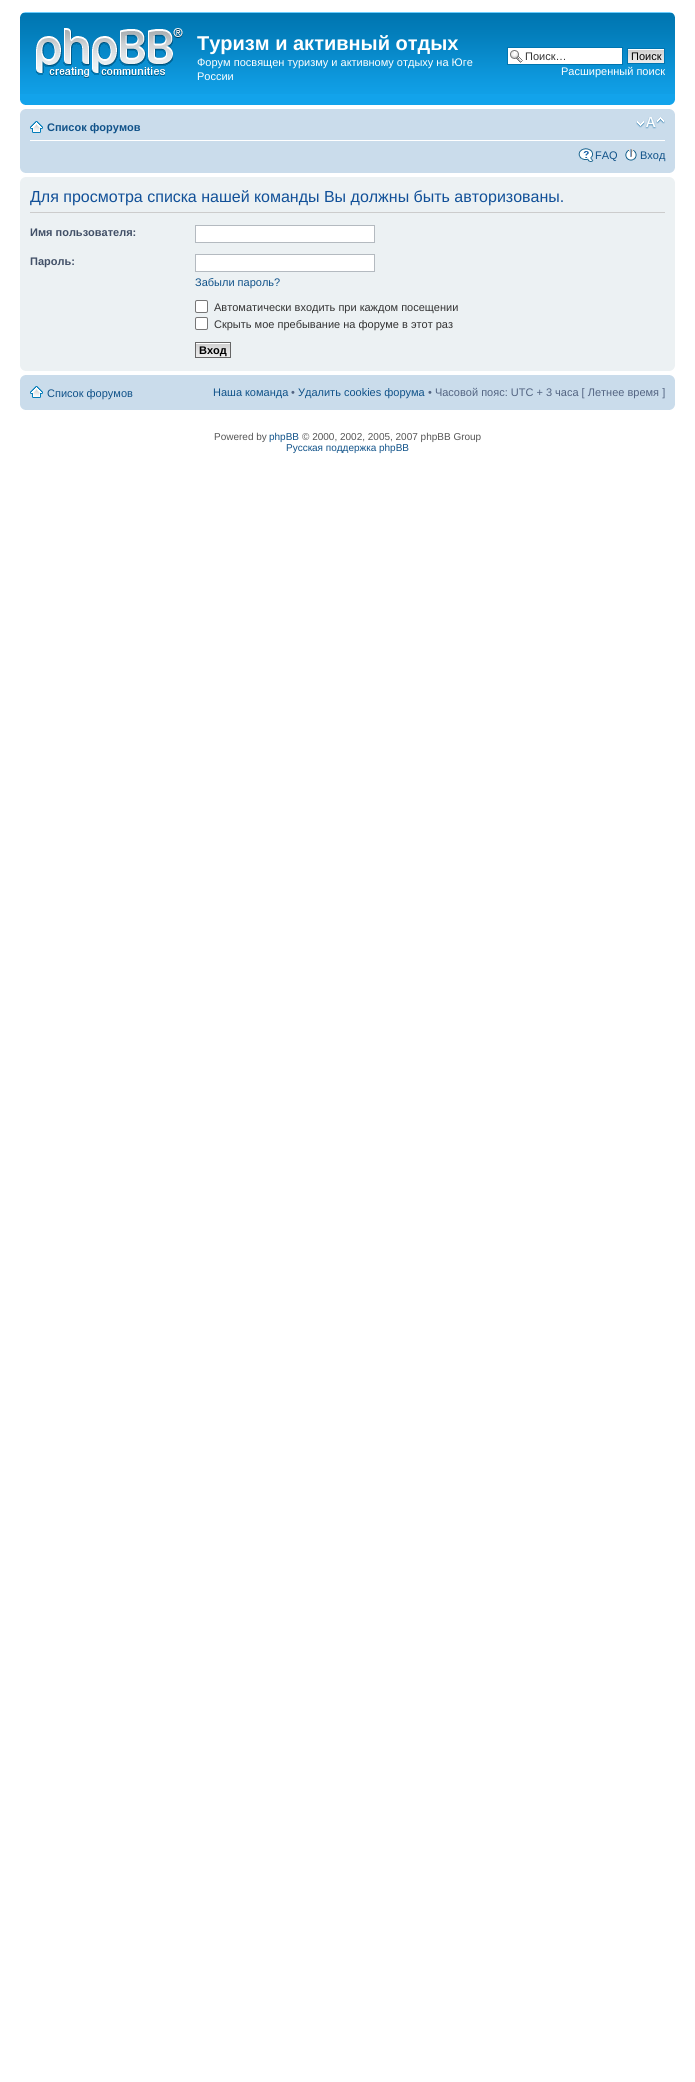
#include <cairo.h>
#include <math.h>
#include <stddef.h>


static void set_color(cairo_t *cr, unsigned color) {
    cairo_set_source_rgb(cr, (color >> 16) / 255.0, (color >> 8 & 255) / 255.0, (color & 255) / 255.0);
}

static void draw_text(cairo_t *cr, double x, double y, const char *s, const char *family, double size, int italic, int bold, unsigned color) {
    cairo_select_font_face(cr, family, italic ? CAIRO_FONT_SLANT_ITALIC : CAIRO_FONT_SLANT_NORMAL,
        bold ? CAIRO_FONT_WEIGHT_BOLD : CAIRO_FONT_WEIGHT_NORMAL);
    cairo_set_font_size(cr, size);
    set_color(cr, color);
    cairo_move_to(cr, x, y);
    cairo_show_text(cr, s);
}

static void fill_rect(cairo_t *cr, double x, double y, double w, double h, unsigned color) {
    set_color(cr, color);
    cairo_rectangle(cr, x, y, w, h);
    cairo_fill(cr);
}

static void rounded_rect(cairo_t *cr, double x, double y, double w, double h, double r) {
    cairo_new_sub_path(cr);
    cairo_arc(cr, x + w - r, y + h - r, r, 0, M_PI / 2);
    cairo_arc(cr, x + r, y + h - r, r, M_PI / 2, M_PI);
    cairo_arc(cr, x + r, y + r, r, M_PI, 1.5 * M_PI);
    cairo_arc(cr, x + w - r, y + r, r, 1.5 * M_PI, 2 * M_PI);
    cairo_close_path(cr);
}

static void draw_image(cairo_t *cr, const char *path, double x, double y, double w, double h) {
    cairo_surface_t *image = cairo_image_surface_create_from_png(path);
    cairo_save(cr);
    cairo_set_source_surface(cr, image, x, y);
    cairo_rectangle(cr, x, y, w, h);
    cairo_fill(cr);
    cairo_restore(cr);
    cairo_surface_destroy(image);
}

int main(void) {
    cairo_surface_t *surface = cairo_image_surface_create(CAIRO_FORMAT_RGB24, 695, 2082);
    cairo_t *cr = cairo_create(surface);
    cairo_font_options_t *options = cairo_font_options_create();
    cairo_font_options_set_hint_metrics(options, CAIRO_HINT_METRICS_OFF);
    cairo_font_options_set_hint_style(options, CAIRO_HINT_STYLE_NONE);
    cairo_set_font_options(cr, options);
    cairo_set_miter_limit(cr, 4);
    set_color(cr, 0xFFFFFF);
    cairo_paint(cr);
    fill_rect(cr, 20, 94, 655, 11, 0x12A3EB);
    draw_image(cr, "assets/img1.png", 20, 12, 655, 82);
    draw_image(cr, "assets/img2.png", 20, 12, 5, 5);
    draw_image(cr, "assets/img3.png", 670, 12, 5, 5);
    draw_image(cr, "assets/img4.png", 36, 28, 147, 50);
    draw_text(cr, 197, 50, "Туризм и активный отдых", "Liberation Sans", 20, 0, 1, 0xFFFFFF);
    draw_text(cr, 197, 66, "Форум посвящен туризму и активному отдыху на Юге", "Liberation Sans", 11, 0, 0, 0xFFFFFF);
    draw_text(cr, 197, 80, "России", "Liberation Sans", 11, 0, 0, 0xFFFFFF);
    fill_rect(cr, 508, 48, 114, 16, 0xFFFFFF);
    draw_image(cr, "assets/img5.png", 510, 50, 13, 13);
    cairo_rectangle(cr, 507.5, 47.5, 115, 17);
    set_color(cr, 0x0075B0);
    cairo_set_line_width(cr, 1);
    cairo_stroke(cr);
    draw_text(cr, 525, 60, "Поиск…", "Liberation Sans", 11, 0, 0, 0x333333);
    draw_image(cr, "assets/img6.png", 628, 49, 36, 14);
    cairo_rectangle(cr, 627.5, 48.5, 37, 15);
    set_color(cr, 0x0075B0);
    cairo_stroke(cr);
    draw_text(cr, 631, 60, "Поиск", "Liberation Sans", 11, 0, 0, 0x000000);
    draw_text(cr, 561, 75, "Расширенный поиск", "Liberation Sans", 11, 0, 0, 0xFFFFFF);
    draw_image(cr, "assets/img7.png", 20, 100, 5, 5);
    draw_image(cr, "assets/img8.png", 670, 100, 5, 5);
    fill_rect(cr, 20, 109, 655, 64, 0xCADCEB);
    draw_image(cr, "assets/img9.png", 20, 109, 5, 5);
    draw_image(cr, "assets/img10.png", 670, 109, 5, 5);
    fill_rect(cr, 30, 140, 635, 1, 0xFFFFFF);
    draw_image(cr, "assets/img11.png", 30, 121, 13, 12);
    draw_text(cr, 47, 131, "Список форумов", "Liberation Sans", 11, 0, 1, 0x105289);
    draw_image(cr, "assets/img12.png", 636, 117, 29, 12);
    draw_image(cr, "assets/img13.png", 578, 148, 16, 14);
    draw_text(cr, 595, 159, "FAQ", "Liberation Sans", 11, 0, 0, 0x105289);
    draw_image(cr, "assets/img14.png", 625, 149, 12, 12);
    draw_text(cr, 640, 159, "Вход", "Liberation Sans", 11, 0, 0, 0x105289);
    draw_image(cr, "assets/img15.png", 20, 168, 5, 5);
    draw_image(cr, "assets/img16.png", 670, 168, 5, 5);
    fill_rect(cr, 20, 177, 655, 194, 0xECF1F3);
    draw_image(cr, "assets/img17.png", 20, 177, 5, 5);
    draw_image(cr, "assets/img18.png", 670, 177, 5, 5);
    fill_rect(cr, 30, 212, 635, 1, 0xCCCCCC);
    draw_text(cr, 30, 202, "Для просмотра списка нашей команды Вы должны быть авторизованы.", "Liberation Sans", 16, 0, 0, 0x115098);
    draw_text(cr, 30, 236, "Имя пользователя:", "Liberation Sans", 11, 0, 1, 0x425067);
    set_color(cr, 0xFFFFFF);
    cairo_rectangle(cr, 195.5, 225.5, 179, 17);
    cairo_fill_preserve(cr);
    set_color(cr, 0xB4BAC0);
    cairo_stroke(cr);
    draw_text(cr, 30, 265, "Пароль:", "Liberation Sans", 11, 0, 1, 0x425067);
    set_color(cr, 0xFFFFFF);
    cairo_rectangle(cr, 195.5, 254.5, 179, 17);
    cairo_fill_preserve(cr);
    set_color(cr, 0xB4BAC0);
    cairo_stroke(cr);
    draw_text(cr, 195, 286, "Забыли пароль?", "Liberation Sans", 11, 0, 0, 0x105289);
    set_color(cr, 0xFFFFFF);
    rounded_rect(cr, 195.5, 300.5, 12, 12, 1.5);
    cairo_fill_preserve(cr);
    set_color(cr, 0x767676);
    cairo_stroke(cr);
    draw_text(cr, 214, 311, "Автоматически входить при каждом посещении", "Liberation Sans", 11, 0, 0, 0x333333);
    set_color(cr, 0xFFFFFF);
    rounded_rect(cr, 195.5, 317.5, 12, 12, 1.5);
    cairo_fill_preserve(cr);
    set_color(cr, 0x767676);
    cairo_stroke(cr);
    draw_text(cr, 214, 328, "Скрыть мое пребывание на форуме в этот раз", "Liberation Sans", 11, 0, 0, 0x333333);
    draw_image(cr, "assets/img19.png", 196, 343, 34, 14);
    cairo_rectangle(cr, 195.5, 342.5, 35, 15);
    set_color(cr, 0x666666);
    cairo_stroke(cr);
    draw_text(cr, 199, 354, "Вход", "Liberation Sans", 11, 0, 1, 0x000000);
    draw_image(cr, "assets/img20.png", 20, 366, 5, 5);
    draw_image(cr, "assets/img21.png", 670, 366, 5, 5);
    fill_rect(cr, 20, 375, 655, 35, 0xCADCEB);
    draw_image(cr, "assets/img9.png", 20, 375, 5, 5);
    draw_image(cr, "assets/img10.png", 670, 375, 5, 5);
    draw_image(cr, "assets/img11.png", 30, 386, 13, 12);
    draw_text(cr, 47, 397, "Список форумов", "Liberation Sans", 11, 0, 0, 0x105289);
    draw_text(cr, 213, 396, "Наша команда", "Liberation Sans", 11, 0, 0, 0x105289);
    draw_text(cr, 291, 396, "•", "Liberation Sans", 11, 0, 0, 0x536482);
    draw_text(cr, 298, 396, "Удалить cookies форума", "Liberation Sans", 11, 0, 0, 0x105289);
    draw_text(cr, 428, 396, "• Часовой пояс: UTC + 3 часа [ Летнее время ]", "Liberation Sans", 11, 0, 0, 0x536482);
    draw_image(cr, "assets/img15.png", 20, 405, 5, 5);
    draw_image(cr, "assets/img16.png", 670, 405, 5, 5);
    draw_text(cr, 214, 440, "Powered by", "Liberation Sans", 10, 0, 0, 0x555555);
    draw_text(cr, 269, 440, "phpBB", "Liberation Sans", 10, 0, 0, 0x105289);
    draw_text(cr, 302, 440, "© 2000, 2002, 2005, 2007 phpBB Group", "Liberation Sans", 10, 0, 0, 0x555555);
    draw_text(cr, 286, 451, "Русская поддержка phpBB", "Liberation Sans", 10, 0, 0, 0x105289);
    cairo_surface_write_to_png(surface, "output.png");
    cairo_font_options_destroy(options);
    cairo_destroy(cr);
    cairo_surface_destroy(surface);
    return 0;
}
